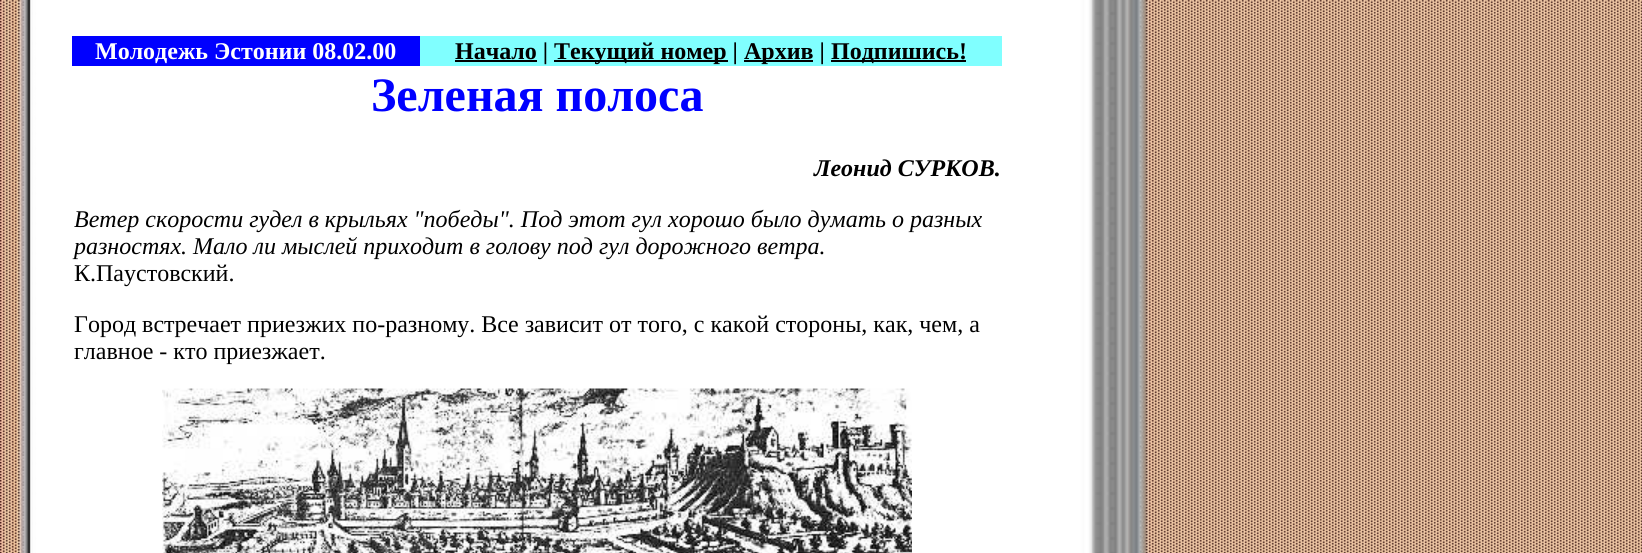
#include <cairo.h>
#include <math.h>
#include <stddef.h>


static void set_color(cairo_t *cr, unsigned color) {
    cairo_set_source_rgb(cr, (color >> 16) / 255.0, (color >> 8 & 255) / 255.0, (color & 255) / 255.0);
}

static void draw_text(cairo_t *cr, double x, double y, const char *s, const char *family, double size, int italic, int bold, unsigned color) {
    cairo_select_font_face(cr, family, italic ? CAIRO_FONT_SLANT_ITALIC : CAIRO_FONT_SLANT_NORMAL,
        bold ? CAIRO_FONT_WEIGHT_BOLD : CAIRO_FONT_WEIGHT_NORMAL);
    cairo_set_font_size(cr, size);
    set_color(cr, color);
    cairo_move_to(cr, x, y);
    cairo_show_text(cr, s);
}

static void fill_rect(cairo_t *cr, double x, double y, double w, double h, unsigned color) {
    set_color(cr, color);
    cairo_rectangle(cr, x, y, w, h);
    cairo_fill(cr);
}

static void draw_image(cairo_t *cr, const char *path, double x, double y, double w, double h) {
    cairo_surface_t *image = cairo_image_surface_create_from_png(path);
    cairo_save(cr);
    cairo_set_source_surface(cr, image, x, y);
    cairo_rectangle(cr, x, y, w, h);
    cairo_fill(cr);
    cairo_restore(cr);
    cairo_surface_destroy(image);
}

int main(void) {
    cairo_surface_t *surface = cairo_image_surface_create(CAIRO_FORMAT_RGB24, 1642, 553);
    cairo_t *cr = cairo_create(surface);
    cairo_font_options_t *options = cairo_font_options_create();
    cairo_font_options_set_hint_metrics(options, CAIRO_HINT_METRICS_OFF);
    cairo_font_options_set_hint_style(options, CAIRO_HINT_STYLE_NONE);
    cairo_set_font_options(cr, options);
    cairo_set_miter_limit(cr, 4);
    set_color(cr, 0xFFFFFF);
    cairo_paint(cr);
    draw_image(cr, "assets/img1.png", 0, 0, 1642, 553);
    fill_rect(cr, 72, 36, 348, 30, 0x0000FF);
    draw_text(cr, 95, 59, "Молодежь Эстонии 08.02.00", "Liberation Serif", 24, 0, 1, 0xFFFFFF);
    fill_rect(cr, 420, 36, 582, 30, 0x80FFFF);
    fill_rect(cr, 455, 60, 82, 2, 0x000000);
    draw_text(cr, 455, 59, "Начало |", "Liberation Serif", 24, 0, 1, 0x000000);
    fill_rect(cr, 554, 60, 174, 2, 0x000000);
    draw_text(cr, 554, 59, "Текущий номер |", "Liberation Serif", 24, 0, 1, 0x000000);
    fill_rect(cr, 744, 60, 69, 2, 0x000000);
    draw_text(cr, 744, 59, "Архив |", "Liberation Serif", 24, 0, 1, 0x000000);
    fill_rect(cr, 831, 60, 135, 2, 0x000000);
    draw_text(cr, 831, 59, "Подпишись!", "Liberation Serif", 24, 0, 1, 0x000000);
    draw_text(cr, 371, 111, "Зеленая полоса", "Liberation Serif", 48, 0, 1, 0x0000FF);
    draw_text(cr, 814, 176, "Леонид СУРКОВ.", "Liberation Serif", 24, 1, 1, 0x000000);
    draw_text(cr, 74, 227, "Ветер скорости гудел в крыльях \"победы\". Под этот гул хорошо было думать о разных", "Liberation Serif", 24, 1, 0, 0x000000);
    draw_text(cr, 74, 254, "разностях. Мало ли мыслей приходит в голову под гул дорожного ветра.", "Liberation Serif", 24, 1, 0, 0x000000);
    draw_text(cr, 74, 281, "К.Паустовский.", "Liberation Serif", 24, 0, 0, 0x000000);
    draw_text(cr, 74, 332, "Город встречает приезжих по-разному. Все зависит от того, с какой стороны, как, чем, а", "Liberation Serif", 24, 0, 0, 0x000000);
    draw_text(cr, 74, 359, "главное - кто приезжает.", "Liberation Serif", 24, 0, 0, 0x000000);
    draw_image(cr, "assets/img2.png", 162, 388, 750, 165);
    cairo_surface_write_to_png(surface, "output.png");
    cairo_font_options_destroy(options);
    cairo_destroy(cr);
    cairo_surface_destroy(surface);
    return 0;
}
